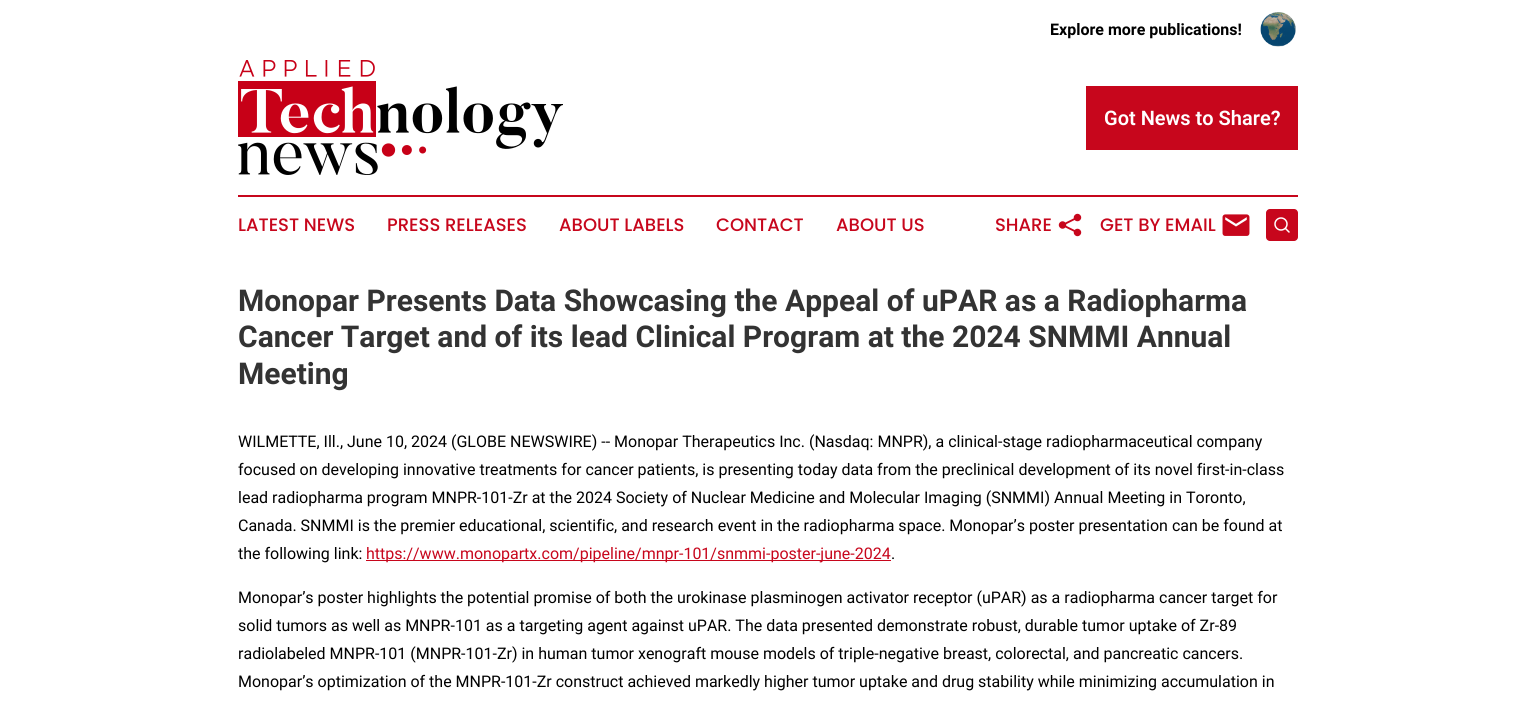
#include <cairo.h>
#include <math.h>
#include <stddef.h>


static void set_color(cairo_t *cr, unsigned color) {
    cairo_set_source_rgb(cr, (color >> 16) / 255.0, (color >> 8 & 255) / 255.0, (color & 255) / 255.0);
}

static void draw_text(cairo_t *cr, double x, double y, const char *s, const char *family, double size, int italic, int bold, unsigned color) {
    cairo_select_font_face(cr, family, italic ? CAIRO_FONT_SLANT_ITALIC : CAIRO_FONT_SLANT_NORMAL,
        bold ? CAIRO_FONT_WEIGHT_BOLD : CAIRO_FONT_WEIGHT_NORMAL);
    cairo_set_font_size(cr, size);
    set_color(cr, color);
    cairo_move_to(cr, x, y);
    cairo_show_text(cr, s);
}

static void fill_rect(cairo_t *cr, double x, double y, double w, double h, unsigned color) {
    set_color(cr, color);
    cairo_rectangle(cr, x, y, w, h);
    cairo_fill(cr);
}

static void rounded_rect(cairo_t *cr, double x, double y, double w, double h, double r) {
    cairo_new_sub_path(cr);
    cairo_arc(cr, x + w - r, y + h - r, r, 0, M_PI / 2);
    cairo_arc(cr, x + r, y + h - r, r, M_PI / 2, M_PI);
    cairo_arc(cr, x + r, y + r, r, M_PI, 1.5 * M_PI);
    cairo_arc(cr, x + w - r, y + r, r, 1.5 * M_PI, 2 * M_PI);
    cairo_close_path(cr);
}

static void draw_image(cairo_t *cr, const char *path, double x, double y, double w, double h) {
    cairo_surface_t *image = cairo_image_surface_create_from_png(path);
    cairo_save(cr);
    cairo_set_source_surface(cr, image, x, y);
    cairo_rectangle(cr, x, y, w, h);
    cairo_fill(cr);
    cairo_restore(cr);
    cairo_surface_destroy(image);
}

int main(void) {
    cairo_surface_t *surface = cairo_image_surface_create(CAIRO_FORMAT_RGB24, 1536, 711);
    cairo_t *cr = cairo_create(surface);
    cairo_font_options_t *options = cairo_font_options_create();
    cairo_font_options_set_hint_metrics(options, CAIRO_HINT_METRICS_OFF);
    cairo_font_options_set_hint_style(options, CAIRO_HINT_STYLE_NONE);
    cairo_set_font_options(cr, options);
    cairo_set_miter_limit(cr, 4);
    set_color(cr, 0xFFFFFF);
    cairo_paint(cr);
    draw_text(cr, 1050, 35, "Explore more publications!", "Roboto", 16, 0, 1, 0x000000);
    draw_image(cr, "assets/img1.png", 1260, 12, 36, 35);
    draw_image(cr, "assets/img2.png", 238, 60, 325, 115);
    fill_rect(cr, 1086, 86, 212, 64, 0xC7061C);
    draw_text(cr, 1104, 125, "Got News to Share?", "Roboto SemiBold", 20, 0, 0, 0xFFFFFF);
    fill_rect(cr, 238, 195, 1060, 2, 0xC7061C);
    draw_text(cr, 238, 231, "LATEST NEWS", "Poppins Medium", 18, 0, 0, 0xC7061C);
    draw_text(cr, 387, 231, "PRESS RELEASES", "Poppins Medium", 18, 0, 0, 0xC7061C);
    draw_text(cr, 559, 231, "ABOUT LABELS", "Poppins Medium", 18, 0, 0, 0xC7061C);
    draw_text(cr, 716, 231, "CONTACT", "Poppins Medium", 18, 0, 0, 0xC7061C);
    draw_text(cr, 836, 231, "ABOUT US", "Poppins Medium", 18, 0, 0, 0xC7061C);
    draw_text(cr, 995, 231, "SHARE", "Poppins Medium", 18, 0, 0, 0xC7061C);
    draw_image(cr, "assets/img3.png", 1058, 213, 24, 24);
    draw_text(cr, 1100, 231, "GET BY EMAIL", "Poppins Medium", 18, 0, 0, 0xC7061C);
    draw_image(cr, "assets/img4.png", 1222, 214, 28, 22);
    rounded_rect(cr, 1266, 209, 32, 32, 4);
    cairo_fill(cr);
    cairo_arc(cr, 1281, 224, 6, 0, 2 * M_PI);
    set_color(cr, 0xFFFFFF);
    cairo_set_line_width(cr, 1.5);
    cairo_stroke(cr);
    cairo_new_path(cr);
    cairo_move_to(cr, 1289, 232);
    cairo_line_to(cr, 1285.5, 228.5);
    cairo_set_line_cap(cr, CAIRO_LINE_CAP_ROUND);
    cairo_set_line_join(cr, CAIRO_LINE_JOIN_ROUND);
    cairo_stroke(cr);
    draw_text(cr, 238, 311, "Monopar Presents Data Showcasing the Appeal of uPAR as a Radiopharma", "Roboto", 30, 0, 1, 0x333333);
    draw_text(cr, 238, 347, "Cancer Target and of its lead Clinical Program at the 2024 SNMMI Annual", "Roboto", 30, 0, 1, 0x333333);
    draw_text(cr, 238, 384, "Meeting", "Roboto", 30, 0, 1, 0x333333);
    draw_text(cr, 238, 447, "WILMETTE, Ill., June 10, 2024 (GLOBE NEWSWIRE) -- Monopar Therapeutics Inc. (Nasdaq: MNPR), a clinical-stage radiopharmaceutical company", "Roboto", 16, 0, 0, 0x000000);
    draw_text(cr, 238, 475, "focused on developing innovative treatments for cancer patients, is presenting today data from the preclinical development of its novel first-in-class", "Roboto", 16, 0, 0, 0x000000);
    draw_text(cr, 238, 503, "lead radiopharma program MNPR-101-Zr at the 2024 Society of Nuclear Medicine and Molecular Imaging (SNMMI) Annual Meeting in Toronto,", "Roboto", 16, 0, 0, 0x000000);
    draw_text(cr, 238, 531, "Canada. SNMMI is the premier educational, scientific, and research event in the radiopharma space. Monopar’s poster presentation can be found at", "Roboto", 16, 0, 0, 0x000000);
    draw_text(cr, 238, 559, "the following link:", "Roboto", 16, 0, 0, 0x000000);
    fill_rect(cr, 366, 560, 525, 1, 0xC7061C);
    draw_text(cr, 366, 559, "https://www.monopartx.com/pipeline/mnpr-101/snmmi-poster-june-2024", "Roboto", 16, 0, 0, 0xC7061C);
    draw_text(cr, 891, 559, ".", "Roboto", 16, 0, 0, 0x000000);
    draw_text(cr, 238, 603, "Monopar’s poster highlights the potential promise of both the urokinase plasminogen activator receptor (uPAR) as a radiopharma cancer target for", "Roboto", 16, 0, 0, 0x000000);
    draw_text(cr, 238, 631, "solid tumors as well as MNPR-101 as a targeting agent against uPAR. The data presented demonstrate robust, durable tumor uptake of Zr-89", "Roboto", 16, 0, 0, 0x000000);
    draw_text(cr, 238, 659, "radiolabeled MNPR-101 (MNPR-101-Zr) in human tumor xenograft mouse models of triple-negative breast, colorectal, and pancreatic cancers.", "Roboto", 16, 0, 0, 0x000000);
    draw_text(cr, 238, 687, "Monopar’s optimization of the MNPR-101-Zr construct achieved markedly higher tumor uptake and drug stability while minimizing accumulation in", "Roboto", 16, 0, 0, 0x000000);
    cairo_surface_write_to_png(surface, "output.png");
    cairo_font_options_destroy(options);
    cairo_destroy(cr);
    cairo_surface_destroy(surface);
    return 0;
}
